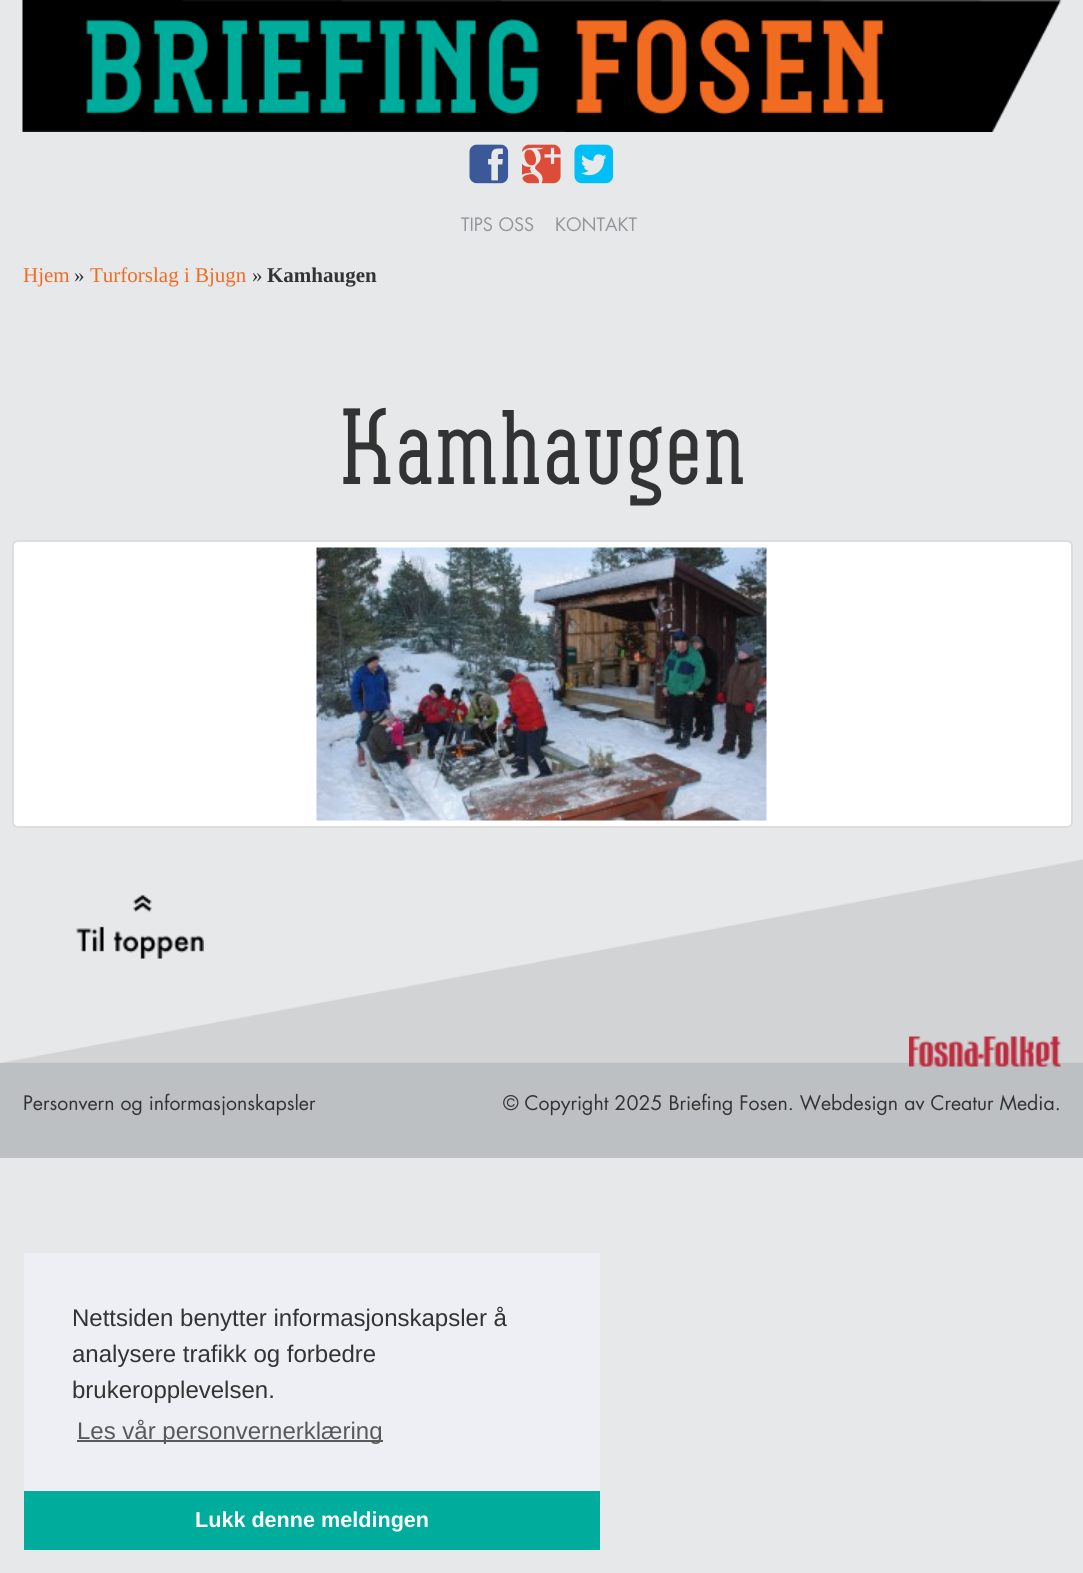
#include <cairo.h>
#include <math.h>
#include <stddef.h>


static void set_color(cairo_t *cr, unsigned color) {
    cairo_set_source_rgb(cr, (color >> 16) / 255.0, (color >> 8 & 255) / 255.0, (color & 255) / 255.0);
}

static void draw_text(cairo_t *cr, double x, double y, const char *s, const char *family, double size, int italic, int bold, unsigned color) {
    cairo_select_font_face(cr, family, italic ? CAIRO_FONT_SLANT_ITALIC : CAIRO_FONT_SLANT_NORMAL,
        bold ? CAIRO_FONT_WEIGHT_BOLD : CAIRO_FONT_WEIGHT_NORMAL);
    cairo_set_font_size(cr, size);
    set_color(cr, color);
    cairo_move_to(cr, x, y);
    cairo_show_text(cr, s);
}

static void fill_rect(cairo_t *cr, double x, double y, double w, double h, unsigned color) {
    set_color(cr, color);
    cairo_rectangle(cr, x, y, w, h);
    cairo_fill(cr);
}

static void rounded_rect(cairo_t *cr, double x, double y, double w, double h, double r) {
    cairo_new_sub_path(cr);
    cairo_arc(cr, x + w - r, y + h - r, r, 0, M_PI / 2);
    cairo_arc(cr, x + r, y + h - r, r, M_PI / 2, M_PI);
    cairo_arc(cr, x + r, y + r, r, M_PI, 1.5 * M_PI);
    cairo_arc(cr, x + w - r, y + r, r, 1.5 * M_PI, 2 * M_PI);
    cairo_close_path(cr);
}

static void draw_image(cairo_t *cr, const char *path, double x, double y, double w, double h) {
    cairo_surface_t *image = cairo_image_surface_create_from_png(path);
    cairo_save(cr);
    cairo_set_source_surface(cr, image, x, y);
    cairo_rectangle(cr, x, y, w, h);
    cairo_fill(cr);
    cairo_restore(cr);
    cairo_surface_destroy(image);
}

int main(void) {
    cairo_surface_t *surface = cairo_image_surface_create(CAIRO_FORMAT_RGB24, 1083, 1573);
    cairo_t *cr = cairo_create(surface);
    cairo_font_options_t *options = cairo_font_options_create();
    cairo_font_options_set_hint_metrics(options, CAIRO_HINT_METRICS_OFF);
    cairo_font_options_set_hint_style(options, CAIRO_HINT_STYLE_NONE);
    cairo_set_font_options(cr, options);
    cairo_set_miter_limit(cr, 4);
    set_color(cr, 0xE7E8E9);
    cairo_paint(cr);
    draw_image(cr, "assets/img1.png", 22, 0, 1039, 132);
    draw_image(cr, "assets/img2.png", 469, 144, 40, 40);
    draw_image(cr, "assets/img3.png", 522, 144, 39, 40);
    draw_image(cr, "assets/img4.png", 574, 144, 40, 40);
    draw_text(cr, 461, 231, "TIPS OSS", "Futura", 18, 0, 0, 0x939598);
    draw_text(cr, 555, 231, "KONTAKT", "Futura", 18, 0, 0, 0x939598);
    draw_text(cr, 23, 282, "Hjem", "Liberation Serif", 21, 0, 0, 0xF16B20);
    draw_text(cr, 74, 282, "»", "Liberation Serif", 21, 0, 0, 0x333333);
    draw_text(cr, 90, 282, "Turforslag i Bjugn", "Liberation Serif", 21, 0, 0, 0xF16B20);
    draw_text(cr, 252, 282, "»", "Liberation Serif", 21, 0, 0, 0x333333);
    draw_text(cr, 267, 282, "Kamhaugen", "Liberation Serif", 21, 0, 1, 0x333333);
    draw_text(cr, 338, 484, "Kamhaugen", "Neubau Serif", 108, 0, 0, 0x333333);
    set_color(cr, 0xFFFFFF);
    rounded_rect(cr, 13, 541, 1059, 286, 5);
    cairo_fill_preserve(cr);
    set_color(cr, 0xDDDDDD);
    cairo_stroke(cr);
    draw_image(cr, "assets/img5.png", 316, 547, 451, 274);
    fill_rect(cr, 0, 1063, 1083, 95, 0xBDC0C3);
    draw_image(cr, "assets/img6.png", 0, 858, 1083, 205);
    draw_image(cr, "assets/img7.png", 76, 894, 128, 65);
    draw_image(cr, "assets/img8.png", 909, 1036, 152, 31);
    draw_text(cr, 23, 1110, "Personvern og informasjonskapsler", "Futura", 19.5, 0, 0, 0x333333);
    draw_text(cr, 503, 1110, "© Copyright 2025 Briefing Fosen. Webdesign av Creatur Media.", "Futura", 19.5, 0, 0, 0x333333);
    fill_rect(cr, 24, 1253, 576, 238, 0xEDEFF5);
    draw_text(cr, 72, 1326, "Nettsiden benytter informasjonskapsler å", "Liberation Sans", 24, 0, 0, 0x333333);
    draw_text(cr, 72, 1362, "analysere trafikk og forbedre", "Liberation Sans", 24, 0, 0, 0x333333);
    draw_text(cr, 72, 1398, "brukeropplevelsen.", "Liberation Sans", 24, 0, 0, 0x333333);
    fill_rect(cr, 77, 1440, 306, 2, 0x58595A);
    draw_text(cr, 77, 1439, "Les vår personvernerklæring", "Liberation Sans", 24, 0, 0, 0x58595A);
    fill_rect(cr, 24, 1491, 576, 59, 0x00AC9C);
    draw_text(cr, 195, 1527, "Lukk denne meldingen", "Liberation Sans", 21.6, 0, 1, 0xFFFFFF);
    cairo_surface_write_to_png(surface, "output.png");
    cairo_font_options_destroy(options);
    cairo_destroy(cr);
    cairo_surface_destroy(surface);
    return 0;
}
